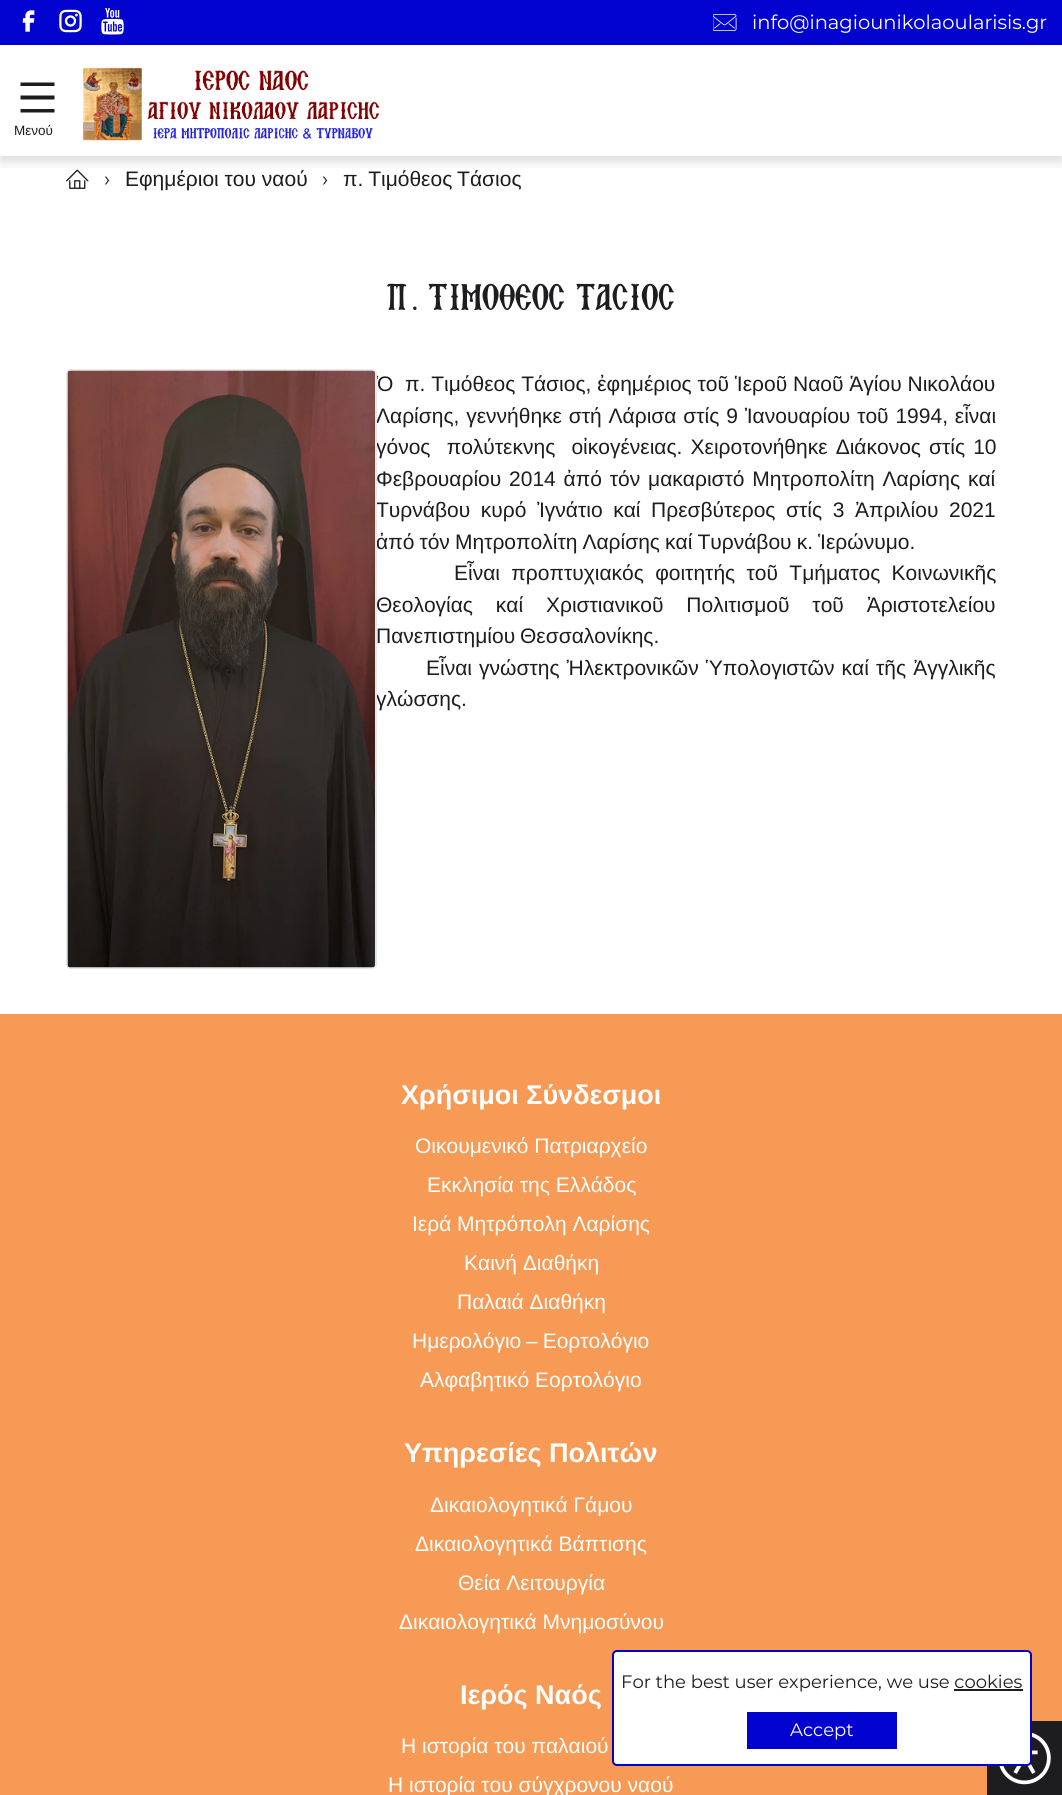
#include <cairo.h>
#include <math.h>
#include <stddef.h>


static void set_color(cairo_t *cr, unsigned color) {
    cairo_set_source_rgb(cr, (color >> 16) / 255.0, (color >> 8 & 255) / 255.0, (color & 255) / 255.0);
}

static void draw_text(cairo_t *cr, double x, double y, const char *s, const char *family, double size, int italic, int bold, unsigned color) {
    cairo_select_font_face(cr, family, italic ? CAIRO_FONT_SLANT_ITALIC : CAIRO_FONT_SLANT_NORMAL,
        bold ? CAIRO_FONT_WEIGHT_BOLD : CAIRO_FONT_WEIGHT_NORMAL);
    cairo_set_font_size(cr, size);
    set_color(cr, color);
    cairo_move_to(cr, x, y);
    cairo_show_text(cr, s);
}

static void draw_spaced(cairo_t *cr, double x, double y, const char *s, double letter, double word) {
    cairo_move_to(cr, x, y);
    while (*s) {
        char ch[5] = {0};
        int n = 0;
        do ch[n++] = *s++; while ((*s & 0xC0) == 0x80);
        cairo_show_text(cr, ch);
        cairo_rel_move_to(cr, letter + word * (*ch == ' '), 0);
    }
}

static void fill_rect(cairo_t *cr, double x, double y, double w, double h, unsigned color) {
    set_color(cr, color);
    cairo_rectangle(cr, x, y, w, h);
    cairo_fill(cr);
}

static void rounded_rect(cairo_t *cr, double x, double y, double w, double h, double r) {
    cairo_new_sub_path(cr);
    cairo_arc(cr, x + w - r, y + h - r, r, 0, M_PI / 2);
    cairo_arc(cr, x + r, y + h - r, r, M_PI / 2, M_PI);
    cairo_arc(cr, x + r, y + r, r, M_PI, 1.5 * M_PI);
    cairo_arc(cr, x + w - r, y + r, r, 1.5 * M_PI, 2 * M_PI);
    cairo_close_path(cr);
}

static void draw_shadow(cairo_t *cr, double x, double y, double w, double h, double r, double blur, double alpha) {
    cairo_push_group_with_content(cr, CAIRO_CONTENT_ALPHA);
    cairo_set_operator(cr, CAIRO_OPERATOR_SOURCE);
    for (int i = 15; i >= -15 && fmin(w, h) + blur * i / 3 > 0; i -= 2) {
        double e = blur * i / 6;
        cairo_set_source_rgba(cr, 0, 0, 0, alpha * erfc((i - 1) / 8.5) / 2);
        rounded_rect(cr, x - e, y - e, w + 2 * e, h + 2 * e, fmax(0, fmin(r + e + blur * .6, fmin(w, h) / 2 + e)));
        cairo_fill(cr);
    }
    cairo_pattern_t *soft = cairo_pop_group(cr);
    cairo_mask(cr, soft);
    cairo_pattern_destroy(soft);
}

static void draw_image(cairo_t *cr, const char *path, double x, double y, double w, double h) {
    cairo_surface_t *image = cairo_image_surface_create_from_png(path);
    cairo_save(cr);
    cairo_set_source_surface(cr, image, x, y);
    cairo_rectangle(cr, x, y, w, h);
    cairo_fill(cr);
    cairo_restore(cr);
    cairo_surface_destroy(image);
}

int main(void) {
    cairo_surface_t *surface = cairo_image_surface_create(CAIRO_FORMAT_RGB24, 1062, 1795);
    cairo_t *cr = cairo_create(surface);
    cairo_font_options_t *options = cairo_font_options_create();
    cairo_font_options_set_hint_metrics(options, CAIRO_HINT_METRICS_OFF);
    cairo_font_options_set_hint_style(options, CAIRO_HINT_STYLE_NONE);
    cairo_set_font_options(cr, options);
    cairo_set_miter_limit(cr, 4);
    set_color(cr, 0xFFFFFF);
    cairo_paint(cr);
    cairo_save(cr);
    cairo_rectangle(cr, 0, 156, 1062, 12);
    cairo_clip(cr);
    set_color(cr, 0x000000);
    draw_shadow(cr, 0, 5, 1062, 156, 0, 6, 0.15);
    cairo_restore(cr);
    fill_rect(cr, 0, 0, 1062, 45, 0x0203CE);
    draw_image(cr, "assets/img1.png", 22, 10, 13, 22);
    draw_image(cr, "assets/img2.png", 59, 9, 23, 24);
    draw_image(cr, "assets/img3.png", 101, 8, 23, 27);
    draw_image(cr, "assets/img4.png", 713, 14, 24, 17);
    draw_text(cr, 752, 29, "info@inagiounikolaoularisis.gr", "Montserrat", 19.5, 0, 0, 0xFFFFFF);
    set_color(cr, 0x1D1D1F);
    cairo_new_path(cr);
    cairo_move_to(cr, 20.5, 82.5);
    cairo_line_to(cr, 54.5, 82.5);
    cairo_line_to(cr, 54.5, 86);
    cairo_line_to(cr, 20.5, 86);
    cairo_close_path(cr);
    cairo_move_to(cr, 20.5, 95.5);
    cairo_line_to(cr, 54.5, 95.5);
    cairo_line_to(cr, 54.5, 99.5);
    cairo_line_to(cr, 20.5, 99.5);
    cairo_close_path(cr);
    cairo_move_to(cr, 20.5, 109);
    cairo_line_to(cr, 54.5, 109);
    cairo_line_to(cr, 54.5, 112.5);
    cairo_line_to(cr, 20.5, 112.5);
    cairo_close_path(cr);
    cairo_fill(cr);
    draw_text(cr, 14, 135, "Μενού", "Liberation Sans", 13.5, 0, 0, 0x1D1D1F);
    draw_image(cr, "assets/img5.png", 83, 67, 297, 74);
    fill_rect(cr, 0, 1014, 1062, 781, 0xF79A55);
    fill_rect(cr, 987, 1721, 75, 74, 0x1D1D1F);
    draw_image(cr, "assets/img6.png", 999, 1732, 52, 53);
    draw_image(cr, "assets/img7.png", 66, 169, 23, 20);
    draw_text(cr, 104, 186, "›", "Montserrat", 21, 0, 0, 0x1D1D1F);
    draw_text(cr, 125, 186, "Εφημέριοι του ναού", "Liberation Sans", 21, 0, 0, 0x1D1D1F);
    draw_text(cr, 322, 186, "›", "Montserrat", 21, 0, 0, 0x1D1D1F);
    cairo_select_font_face(cr, "Liberation Sans", CAIRO_FONT_SLANT_NORMAL, CAIRO_FONT_WEIGHT_NORMAL);
    draw_spaced(cr, 343, 186, "π. Τιμόθεος Τάσιος", 0, -1);
    draw_text(cr, 387, 310, "Π. ΤΙΜΟΘΕΟΣ ΤΑΣΙΟΣ", "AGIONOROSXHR", 36, 0, 0, 0x1D1D1F);
    draw_text(cr, 376, 391, "Ὁ  π. Τιμόθεος Τάσιος, ἐφημέριος τοῦ Ἱεροῦ Ναοῦ Ἁγίου Νικολάου", "Liberation Sans", 21, 0, 0, 0x1D1D1F);
    draw_spaced(cr, 376, 423, "Λαρίσης, γεννήθηκε στή Λάρισα στίς 9 Ἰανουαρίου τοῦ 1994, εἶναι", 0, 1);
    draw_spaced(cr, 376, 454, "γόνος  πολύτεκνης  οἰκογένειας. Χειροτονήθηκε Διάκονος στίς 10", 0, 2.25);
    draw_spaced(cr, 376, 517, "Τυρνάβου κυρό Ἰγνάτιο καί Πρεσβύτερος στίς 3 Ἀπριλίου 2021", 0, 4.75);
    draw_spaced(cr, 376, 549, "ἀπό τόν Μητροπολίτη Λαρίσης καί Τυρνάβου κ. Ἱερώνυμο.", 0, -0.75);
    draw_spaced(cr, 376, 612, "Θεολογίας καί Χριστιανικοῦ Πολιτισμοῦ τοῦ Ἀριστοτελείου", 0, 17);
    draw_text(cr, 376, 706, "γλώσσης.", "Liberation Sans", 21, 0, 0, 0x1D1D1F);
    rounded_rect(cr, 67, 370, 309, 598, 4);
    set_color(cr, 0xE5E7EB);
    cairo_stroke(cr);
    draw_image(cr, "assets/img8.png", 67, 370, 308, 598);
    set_color(cr, 0x1D1D1F);
    draw_spaced(cr, 376, 486, "Φεβρουαρίου 2014 ἀπό τόν μακαριστό Μητροπολίτη Λαρίσης καί", 0, 2);
    draw_spaced(cr, 454, 580, "Εἶναι προπτυχιακός φοιτητής τοῦ Τμήματος Κοινωνικῆς", 0, 5.5);
    draw_spaced(cr, 376, 643, "Πανεπιστημίου Θεσσαλονίκης.", 0, -1);
    draw_spaced(cr, 426, 675, "Εἶναι γνώστης Ἠλεκτρονικῶν Ὑπολογιστῶν καί τῆς Ἀγγλικῆς", 0, 1.25);
    draw_text(cr, 401, 1104, "Χρήσιμοι Σύνδεσμοι", "Liberation Sans", 27, 0, 1, 0xFFFFFF);
    draw_text(cr, 415, 1153, "Οικουμενικό Πατριαρχείο", "Liberation Sans", 21, 0, 0, 0xFFFFFF);
    draw_text(cr, 427, 1192, "Εκκλησία της Ελλάδος", "Liberation Sans", 21, 0, 0, 0xFFFFFF);
    draw_text(cr, 412, 1231, "Ιερά Μητρόπολη Λαρίσης", "Liberation Sans", 21, 0, 0, 0xFFFFFF);
    draw_text(cr, 464, 1270, "Καινή Διαθήκη", "Liberation Sans", 21, 0, 0, 0xFFFFFF);
    draw_text(cr, 457, 1309, "Παλαιά Διαθήκη", "Liberation Sans", 21, 0, 0, 0xFFFFFF);
    draw_spaced(cr, 412, 1348, "Ημερολόγιο – Εορτολόγιο", 0, -1);
    draw_text(cr, 420, 1387, "Αλφαβητικό Εορτολόγιο", "Liberation Sans", 21, 0, 0, 0xFFFFFF);
    draw_text(cr, 404, 1462, "Υπηρεσίες Πολιτών", "Liberation Sans", 27, 0, 1, 0xFFFFFF);
    draw_text(cr, 430, 1512, "Δικαιολογητικά Γάμου", "Liberation Sans", 21, 0, 0, 0xFFFFFF);
    draw_text(cr, 415, 1551, "Δικαιολογητικά Βάπτισης", "Liberation Sans", 21, 0, 0, 0xFFFFFF);
    draw_text(cr, 458, 1590, "Θεία Λειτουργία", "Liberation Sans", 21, 0, 0, 0xFFFFFF);
    draw_text(cr, 399, 1629, "Δικαιολογητικά Μνημοσύνου", "Liberation Sans", 21, 0, 0, 0xFFFFFF);
    draw_text(cr, 460, 1704, "Ιερός Ναός", "Liberation Sans", 27, 0, 1, 0xFFFFFF);
    draw_text(cr, 401, 1753, "H ιστορία του παλαιού", "Liberation Sans", 21, 0, 0, 0xFFFFFF);
    draw_text(cr, 388, 1792, "H ιστορία του σύγχρονου ναού", "Liberation Sans", 21, 0, 0, 0xFFFFFF);
    rounded_rect(cr, 613, 1651, 418, 114, 4);
    cairo_fill_preserve(cr);
    set_color(cr, 0x0203CE);
    cairo_stroke(cr);
    draw_text(cr, 621, 1688, "For the best user experience, we use cookies", "Montserrat", 18, 0, 0, 0x1D1D1F);
    fill_rect(cr, 954, 1689, 69, 2, 0x1D1D1F);
    fill_rect(cr, 747, 1712, 150, 37, 0x0203CE);
    draw_text(cr, 790, 1736, "Accept", "Montserrat", 18, 0, 0, 0xFFFFFF);
    cairo_surface_write_to_png(surface, "output.png");
    cairo_font_options_destroy(options);
    cairo_destroy(cr);
    cairo_surface_destroy(surface);
    return 0;
}
